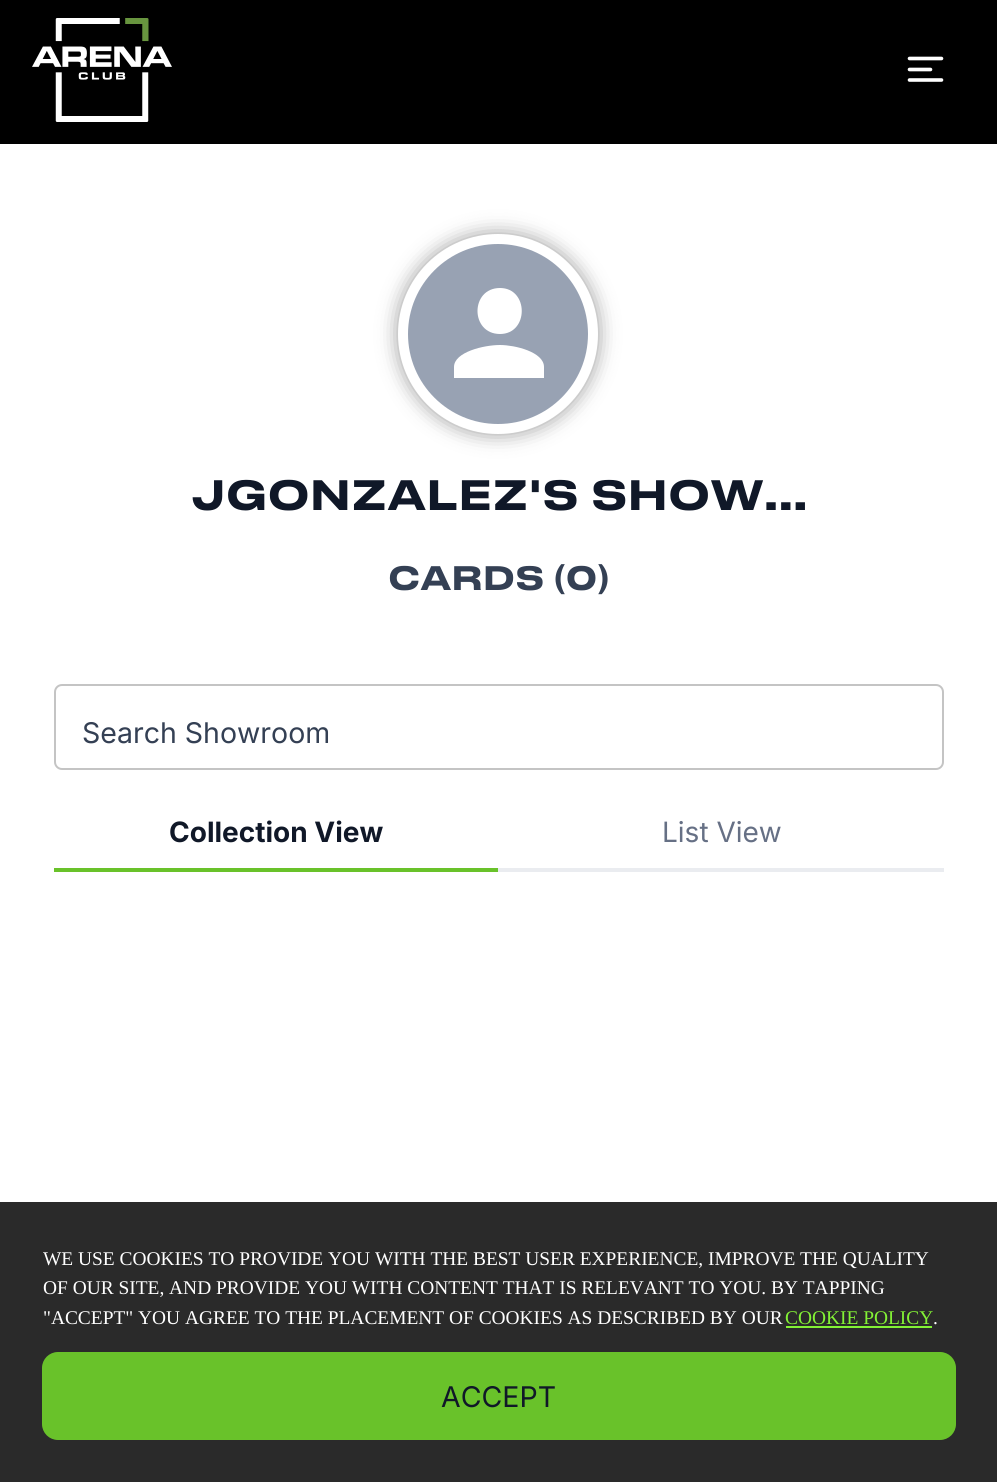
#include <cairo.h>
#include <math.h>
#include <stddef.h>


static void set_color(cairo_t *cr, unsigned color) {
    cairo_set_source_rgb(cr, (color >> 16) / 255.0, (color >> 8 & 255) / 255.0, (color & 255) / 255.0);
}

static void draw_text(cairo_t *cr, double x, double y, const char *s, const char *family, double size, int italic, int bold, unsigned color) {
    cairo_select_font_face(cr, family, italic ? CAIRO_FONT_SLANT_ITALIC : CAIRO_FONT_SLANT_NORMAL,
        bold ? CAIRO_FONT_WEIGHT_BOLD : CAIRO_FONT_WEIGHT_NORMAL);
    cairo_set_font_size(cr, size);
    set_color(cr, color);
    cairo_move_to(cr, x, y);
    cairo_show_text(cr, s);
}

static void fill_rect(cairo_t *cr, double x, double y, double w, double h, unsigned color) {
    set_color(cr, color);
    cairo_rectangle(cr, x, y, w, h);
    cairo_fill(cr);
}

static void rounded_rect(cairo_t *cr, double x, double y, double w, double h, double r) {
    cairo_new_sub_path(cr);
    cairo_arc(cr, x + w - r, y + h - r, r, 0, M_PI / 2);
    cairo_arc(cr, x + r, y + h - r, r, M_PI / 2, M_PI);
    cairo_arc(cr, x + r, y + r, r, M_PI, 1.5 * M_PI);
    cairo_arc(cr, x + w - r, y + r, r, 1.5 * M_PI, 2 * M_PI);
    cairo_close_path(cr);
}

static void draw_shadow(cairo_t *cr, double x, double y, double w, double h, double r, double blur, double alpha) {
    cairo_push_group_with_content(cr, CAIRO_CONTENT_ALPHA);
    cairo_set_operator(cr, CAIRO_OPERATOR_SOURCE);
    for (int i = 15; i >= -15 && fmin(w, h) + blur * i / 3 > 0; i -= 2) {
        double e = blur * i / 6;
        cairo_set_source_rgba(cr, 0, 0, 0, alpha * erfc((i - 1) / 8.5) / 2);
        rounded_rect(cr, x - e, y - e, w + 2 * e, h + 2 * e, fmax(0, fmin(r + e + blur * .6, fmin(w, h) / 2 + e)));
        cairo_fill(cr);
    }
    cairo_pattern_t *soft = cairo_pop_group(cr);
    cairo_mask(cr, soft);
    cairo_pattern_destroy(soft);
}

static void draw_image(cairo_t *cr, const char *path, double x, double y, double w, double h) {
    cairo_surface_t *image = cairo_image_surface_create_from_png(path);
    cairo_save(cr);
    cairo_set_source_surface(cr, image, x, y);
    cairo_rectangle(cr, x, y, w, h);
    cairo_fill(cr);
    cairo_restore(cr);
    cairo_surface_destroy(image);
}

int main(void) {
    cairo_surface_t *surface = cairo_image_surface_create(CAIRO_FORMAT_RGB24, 997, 1482);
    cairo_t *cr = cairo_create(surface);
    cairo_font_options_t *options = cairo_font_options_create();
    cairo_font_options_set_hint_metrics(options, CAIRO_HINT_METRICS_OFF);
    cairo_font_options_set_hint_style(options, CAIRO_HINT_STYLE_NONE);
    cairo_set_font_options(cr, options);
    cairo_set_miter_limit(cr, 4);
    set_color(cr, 0xFFFFFF);
    cairo_paint(cr);
    fill_rect(cr, 0, 0, 997, 144, 0x000000);
    draw_image(cr, "assets/img1.png", 32, 18, 140, 104);
    cairo_new_path(cr);
    cairo_move_to(cr, 909.5, 69.5);
    cairo_line_to(cr, 930.5, 69.5);
    cairo_move_to(cr, 909.5, 58.5);
    cairo_line_to(cr, 941.5, 58.5);
    cairo_move_to(cr, 909.5, 80);
    cairo_line_to(cr, 941.5, 80);
    set_color(cr, 0xFFFFFF);
    cairo_set_line_width(cr, 3.6);
    cairo_set_line_cap(cr, CAIRO_LINE_CAP_ROUND);
    cairo_set_line_join(cr, CAIRO_LINE_JOIN_ROUND);
    cairo_stroke(cr);
    set_color(cr, 0x000000);
    draw_shadow(cr, 398, 234, 200, 200, 100, 10, 0.4);
    set_color(cr, 0x98A2B3);
    cairo_arc(cr, 498, 334, 95, 0, 2 * M_PI);
    cairo_fill_preserve(cr);
    set_color(cr, 0xFFFFFF);
    cairo_set_line_width(cr, 10);
    cairo_set_line_cap(cr, CAIRO_LINE_CAP_BUTT);
    cairo_set_line_join(cr, CAIRO_LINE_JOIN_MITER);
    cairo_stroke(cr);
    cairo_new_path(cr);
    cairo_move_to(cr, 500, 334);
    cairo_curve_to(cr, 529, 334, 529, 288, 500, 288);
    cairo_curve_to(cr, 470, 288, 470, 334, 500, 334);
    cairo_close_path(cr);
    cairo_move_to(cr, 500, 345);
    cairo_curve_to(cr, 484, 345, 454, 352, 454, 367);
    cairo_line_to(cr, 454, 378);
    cairo_line_to(cr, 544, 378);
    cairo_line_to(cr, 544, 367);
    cairo_curve_to(cr, 544, 352, 515, 345, 500, 345);
    cairo_close_path(cr);
    cairo_fill(cr);
    draw_text(cr, 191, 510, "JGONZALEZ'S SHOW...", "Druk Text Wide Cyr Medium", 40, 0, 0, 0x101828);
    draw_text(cr, 388, 590, "CARDS (0)", "Druk Text Wide Cyr Medium", 32, 0, 0, 0x344054);
    rounded_rect(cr, 55, 685, 888, 84, 7);
    set_color(cr, 0xC4C4C4);
    cairo_set_line_width(cr, 2);
    cairo_stroke(cr);
    draw_text(cr, 82, 743, "Search Showroom", "Inter", 28.5, 0, 0, 0x344054);
    fill_rect(cr, 54, 868, 444, 4, 0x69C22A);
    draw_text(cr, 169, 842, "Collection View", "Inter", 28, 0, 1, 0x101828);
    fill_rect(cr, 498, 868, 446, 4, 0xEAECF0);
    draw_text(cr, 662, 842, "List View", "Inter", 28, 0, 0, 0x667085);
    fill_rect(cr, 0, 1202, 997, 280, 0x2A2A2A);
    draw_text(cr, 43, 1265, "WE USE COOKIES TO PROVIDE YOU WITH THE BEST USER EXPERIENCE, IMPROVE THE QUALITY", "Liberation Serif", 19.4, 0, 0, 0xFFFFFF);
    draw_text(cr, 43, 1294, "OF OUR SITE, AND PROVIDE YOU WITH CONTENT THAT IS RELEVANT TO YOU. BY TAPPING", "Liberation Serif", 19.4, 0, 0, 0xFFFFFF);
    draw_text(cr, 43, 1324, "\"ACCEPT\" YOU AGREE TO THE PLACEMENT OF COOKIES AS DESCRIBED BY OUR", "Liberation Serif", 19.4, 0, 0, 0xFFFFFF);
    draw_text(cr, 785, 1324, "COOKIE POLICY", "Liberation Serif", 19.4, 0, 0, 0x83F235);
    fill_rect(cr, 786, 1326, 146, 2, 0x83F235);
    draw_text(cr, 933, 1324, ".", "Liberation Serif", 19.4, 0, 0, 0xFFFFFF);
    set_color(cr, 0x69C22A);
    rounded_rect(cr, 43, 1353, 912, 86, 15);
    cairo_fill_preserve(cr);
    cairo_stroke(cr);
    draw_text(cr, 441, 1407, "ACCEPT", "Inter", 28.5, 0, 0, 0x101828);
    cairo_surface_write_to_png(surface, "output.png");
    cairo_font_options_destroy(options);
    cairo_destroy(cr);
    cairo_surface_destroy(surface);
    return 0;
}
